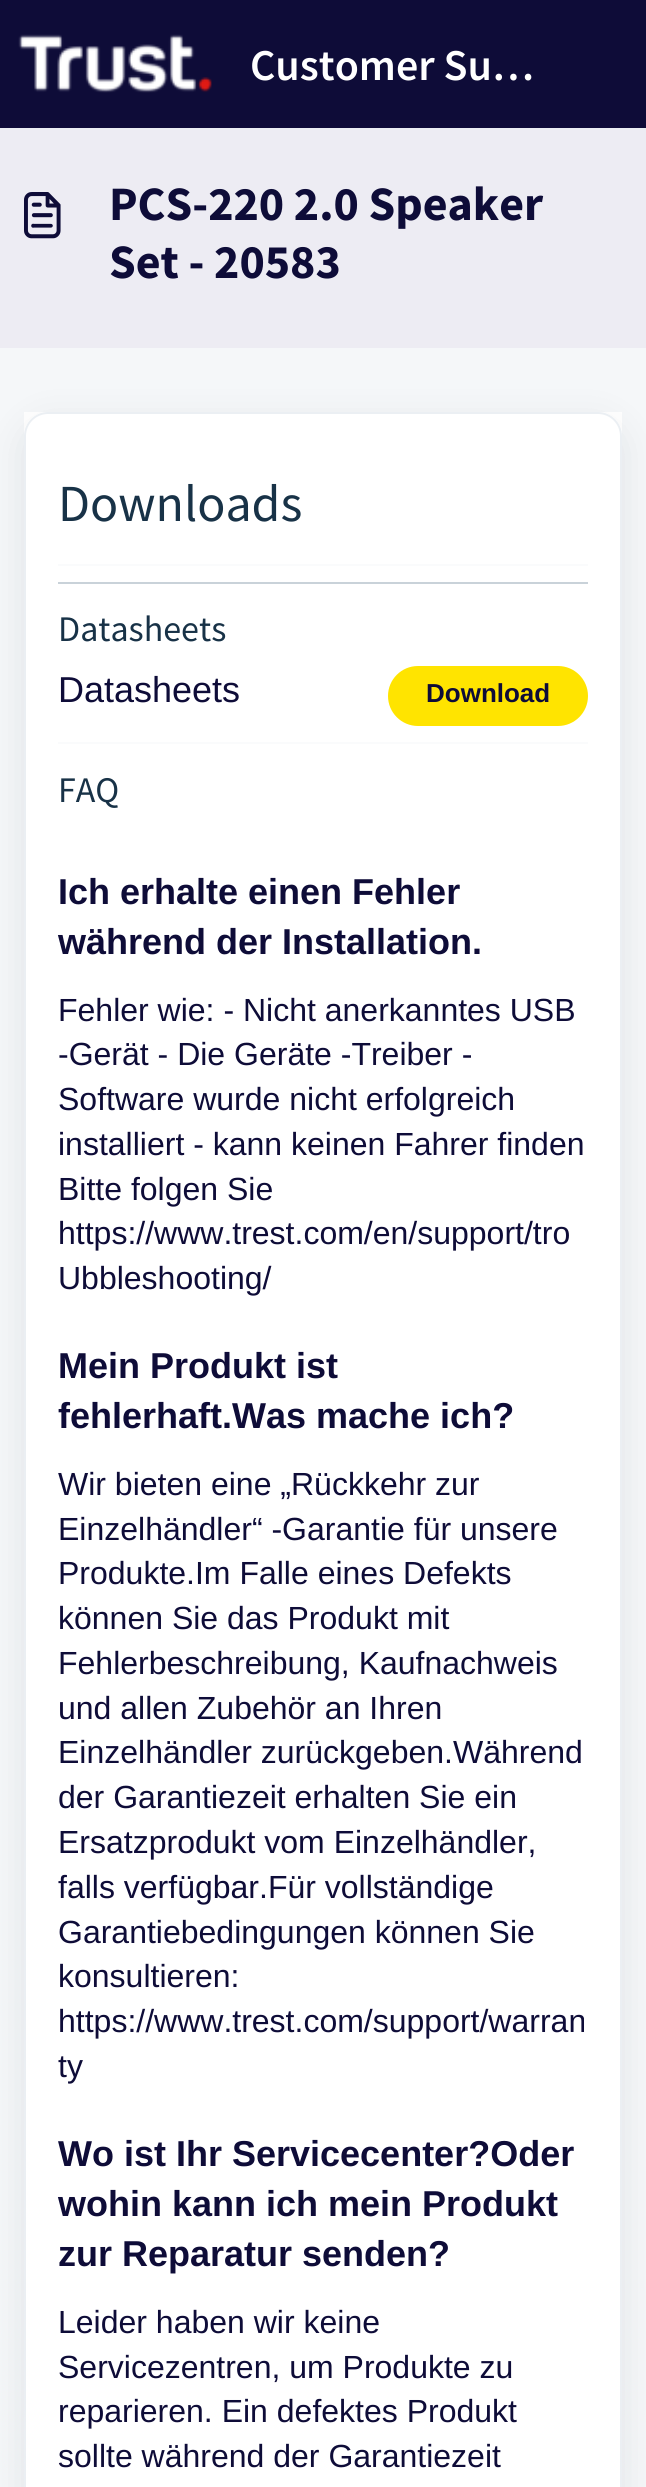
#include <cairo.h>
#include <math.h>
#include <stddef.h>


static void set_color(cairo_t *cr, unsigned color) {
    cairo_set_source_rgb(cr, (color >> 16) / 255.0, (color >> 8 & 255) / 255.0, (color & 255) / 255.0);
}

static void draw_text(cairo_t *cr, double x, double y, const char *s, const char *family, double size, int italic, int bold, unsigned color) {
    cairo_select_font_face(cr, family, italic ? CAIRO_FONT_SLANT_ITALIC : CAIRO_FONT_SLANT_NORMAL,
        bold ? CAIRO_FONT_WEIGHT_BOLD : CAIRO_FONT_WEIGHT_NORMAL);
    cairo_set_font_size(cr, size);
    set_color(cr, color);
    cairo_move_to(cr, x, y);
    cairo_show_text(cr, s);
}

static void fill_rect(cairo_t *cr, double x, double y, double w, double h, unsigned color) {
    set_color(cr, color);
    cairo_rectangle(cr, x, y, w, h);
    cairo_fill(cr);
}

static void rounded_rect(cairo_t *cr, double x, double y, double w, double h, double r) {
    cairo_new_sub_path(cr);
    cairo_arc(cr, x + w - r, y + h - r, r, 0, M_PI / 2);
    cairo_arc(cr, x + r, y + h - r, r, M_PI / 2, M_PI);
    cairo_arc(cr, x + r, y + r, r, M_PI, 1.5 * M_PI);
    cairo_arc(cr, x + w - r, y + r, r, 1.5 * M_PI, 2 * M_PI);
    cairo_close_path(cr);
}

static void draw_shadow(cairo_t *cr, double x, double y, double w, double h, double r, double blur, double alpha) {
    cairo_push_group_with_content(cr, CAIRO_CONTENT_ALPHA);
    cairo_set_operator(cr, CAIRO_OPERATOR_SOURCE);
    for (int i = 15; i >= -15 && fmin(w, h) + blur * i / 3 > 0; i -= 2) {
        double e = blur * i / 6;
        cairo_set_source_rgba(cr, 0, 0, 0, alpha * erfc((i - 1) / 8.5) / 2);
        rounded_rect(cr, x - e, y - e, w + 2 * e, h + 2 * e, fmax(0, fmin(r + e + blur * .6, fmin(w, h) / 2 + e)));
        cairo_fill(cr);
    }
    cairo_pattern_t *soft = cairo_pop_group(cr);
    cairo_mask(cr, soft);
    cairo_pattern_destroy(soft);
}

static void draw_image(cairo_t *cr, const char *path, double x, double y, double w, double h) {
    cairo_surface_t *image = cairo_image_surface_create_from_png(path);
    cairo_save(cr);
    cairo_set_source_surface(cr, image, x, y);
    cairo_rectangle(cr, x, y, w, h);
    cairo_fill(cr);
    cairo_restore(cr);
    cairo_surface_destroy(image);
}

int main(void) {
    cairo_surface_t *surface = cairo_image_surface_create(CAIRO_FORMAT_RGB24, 646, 2487);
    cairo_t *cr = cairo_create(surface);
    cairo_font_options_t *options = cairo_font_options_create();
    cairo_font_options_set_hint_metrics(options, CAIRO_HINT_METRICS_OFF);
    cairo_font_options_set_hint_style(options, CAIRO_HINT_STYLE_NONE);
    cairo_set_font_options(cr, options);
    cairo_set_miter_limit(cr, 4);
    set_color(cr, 0xF5F7F9);
    cairo_paint(cr);
    fill_rect(cr, 0, 0, 646, 128, 0x0E0C38);
    fill_rect(cr, 0, 128, 646, 2, 0xEBEFF3);
    draw_image(cr, "assets/img1.png", 18, 34, 194, 59);
    draw_text(cr, 250, 80, "Customer Su…", "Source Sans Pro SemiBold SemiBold", 44, 0, 0, 0xFFFFFF);
    fill_rect(cr, 0, 130, 646, 218, 0xEDECF3);
    draw_image(cr, "assets/img2.png", 24, 192, 37, 47);
    draw_text(cr, 109, 220, "PCS-220 2.0 Speaker", "Source Sans Pro", 48, 0, 1, 0x0E0C38);
    draw_text(cr, 109, 278, "Set - 20583", "Source Sans Pro", 48, 0, 1, 0x0E0C38);
    fill_rect(cr, 24, 412, 598, 2075, 0xFFFFFF);
    cairo_save(cr);
    cairo_set_fill_rule(cr, CAIRO_FILL_RULE_EVEN_ODD);
    cairo_new_path(cr);
    cairo_move_to(cr, 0, 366);
    cairo_line_to(cr, 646, 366);
    cairo_line_to(cr, 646, 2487);
    cairo_line_to(cr, 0, 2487);
    cairo_close_path(cr);
    cairo_move_to(cr, 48, 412);
    cairo_line_to(cr, 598, 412);
    cairo_curve_to(cr, 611.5, 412, 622, 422.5, 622, 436);
    cairo_line_to(cr, 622, 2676);
    cairo_curve_to(cr, 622, 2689.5, 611.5, 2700, 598, 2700);
    cairo_line_to(cr, 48, 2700);
    cairo_curve_to(cr, 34.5, 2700, 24, 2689.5, 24, 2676);
    cairo_line_to(cr, 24, 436);
    cairo_curve_to(cr, 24, 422.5, 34.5, 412, 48, 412);
    cairo_close_path(cr);
    cairo_clip(cr);
    set_color(cr, 0x27313A);
    draw_shadow(cr, 24, 424, 598, 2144, 24, 19, 0.1);
    cairo_restore(cr);
    rounded_rect(cr, 25, 413, 596, 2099, 23);
    set_color(cr, 0xEBEFF3);
    cairo_stroke(cr);
    draw_text(cr, 58, 521, "Downloads", "Source Sans Pro", 52, 0, 0, 0x183247);
    fill_rect(cr, 58, 564, 530, 2, 0xFAFBFC);
    fill_rect(cr, 58, 582, 530, 2, 0xC9D2D9);
    draw_text(cr, 58, 641, "Datasheets", "Source Sans Pro", 36, 0, 0, 0x183247);
    draw_text(cr, 58, 702, "Datasheets", "Liberation Sans", 36, 0, 0, 0x0E0C38);
    set_color(cr, 0xFFE400);
    rounded_rect(cr, 388, 666, 200, 60, 30);
    cairo_fill(cr);
    draw_text(cr, 426, 702, "Download", "Liberation Sans", 26, 0, 1, 0x0E0C38);
    fill_rect(cr, 58, 742, 530, 2, 0xFAFBFC);
    draw_text(cr, 58, 802, "FAQ", "Source Sans Pro", 36, 0, 0, 0x183247);
    draw_text(cr, 58, 904, "Ich erhalte einen Fehler", "Liberation Sans", 36, 0, 1, 0x0E0C38);
    draw_text(cr, 58, 954, "während der Installation.", "Liberation Sans", 36, 0, 1, 0x0E0C38);
    draw_text(cr, 58, 1021, "Fehler wie: - Nicht anerkanntes USB", "Liberation Sans", 32, 0, 0, 0x0E0C38);
    draw_text(cr, 58, 1065, "-Gerät - Die Geräte -Treiber -", "Liberation Sans", 32, 0, 0, 0x0E0C38);
    draw_text(cr, 58, 1110, "Software wurde nicht erfolgreich", "Liberation Sans", 32, 0, 0, 0x0E0C38);
    draw_text(cr, 58, 1155, "installiert - kann keinen Fahrer finden", "Liberation Sans", 32, 0, 0, 0x0E0C38);
    draw_text(cr, 58, 1200, "Bitte folgen Sie", "Liberation Sans", 32, 0, 0, 0x0E0C38);
    draw_text(cr, 58, 1244, "https://www.trest.com/en/support/tro", "Liberation Sans", 32, 0, 0, 0x0E0C38);
    draw_text(cr, 58, 1289, "Ubbleshooting/", "Liberation Sans", 32, 0, 0, 0x0E0C38);
    draw_text(cr, 58, 1378, "Mein Produkt ist", "Liberation Sans", 36, 0, 1, 0x0E0C38);
    draw_text(cr, 58, 1428, "fehlerhaft.Was mache ich?", "Liberation Sans", 36, 0, 1, 0x0E0C38);
    draw_text(cr, 58, 1495, "Wir bieten eine „Rückkehr zur", "Liberation Sans", 32, 0, 0, 0x0E0C38);
    draw_text(cr, 58, 1540, "Einzelhändler“ -Garantie für unsere", "Liberation Sans", 32, 0, 0, 0x0E0C38);
    draw_text(cr, 58, 1584, "Produkte.Im Falle eines Defekts", "Liberation Sans", 32, 0, 0, 0x0E0C38);
    draw_text(cr, 58, 1629, "können Sie das Produkt mit", "Liberation Sans", 32, 0, 0, 0x0E0C38);
    draw_text(cr, 58, 1674, "Fehlerbeschreibung, Kaufnachweis", "Liberation Sans", 32, 0, 0, 0x0E0C38);
    draw_text(cr, 58, 1719, "und allen Zubehör an Ihren", "Liberation Sans", 32, 0, 0, 0x0E0C38);
    draw_text(cr, 58, 1763, "Einzelhändler zurückgeben.Während", "Liberation Sans", 32, 0, 0, 0x0E0C38);
    draw_text(cr, 58, 1808, "der Garantiezeit erhalten Sie ein", "Liberation Sans", 32, 0, 0, 0x0E0C38);
    draw_text(cr, 58, 1853, "Ersatzprodukt vom Einzelhändler,", "Liberation Sans", 32, 0, 0, 0x0E0C38);
    draw_text(cr, 58, 1898, "falls verfügbar.Für vollständige", "Liberation Sans", 32, 0, 0, 0x0E0C38);
    draw_text(cr, 58, 1943, "Garantiebedingungen können Sie", "Liberation Sans", 32, 0, 0, 0x0E0C38);
    draw_text(cr, 58, 1987, "konsultieren:", "Liberation Sans", 32, 0, 0, 0x0E0C38);
    draw_text(cr, 58, 2032, "https://www.trest.com/support/warran", "Liberation Sans", 32, 0, 0, 0x0E0C38);
    draw_text(cr, 58, 2077, "ty", "Liberation Sans", 32, 0, 0, 0x0E0C38);
    draw_text(cr, 58, 2166, "Wo ist Ihr Servicecenter?Oder", "Liberation Sans", 36, 0, 1, 0x0E0C38);
    draw_text(cr, 58, 2216, "wohin kann ich mein Produkt", "Liberation Sans", 36, 0, 1, 0x0E0C38);
    draw_text(cr, 58, 2266, "zur Reparatur senden?", "Liberation Sans", 36, 0, 1, 0x0E0C38);
    draw_text(cr, 58, 2333, "Leider haben wir keine", "Liberation Sans", 32, 0, 0, 0x0E0C38);
    draw_text(cr, 58, 2378, "Servicezentren, um Produkte zu", "Liberation Sans", 32, 0, 0, 0x0E0C38);
    draw_text(cr, 58, 2422, "reparieren. Ein defektes Produkt", "Liberation Sans", 32, 0, 0, 0x0E0C38);
    draw_text(cr, 58, 2467, "sollte während der Garantiezeit", "Liberation Sans", 32, 0, 0, 0x0E0C38);
    cairo_surface_write_to_png(surface, "output.png");
    cairo_font_options_destroy(options);
    cairo_destroy(cr);
    cairo_surface_destroy(surface);
    return 0;
}
